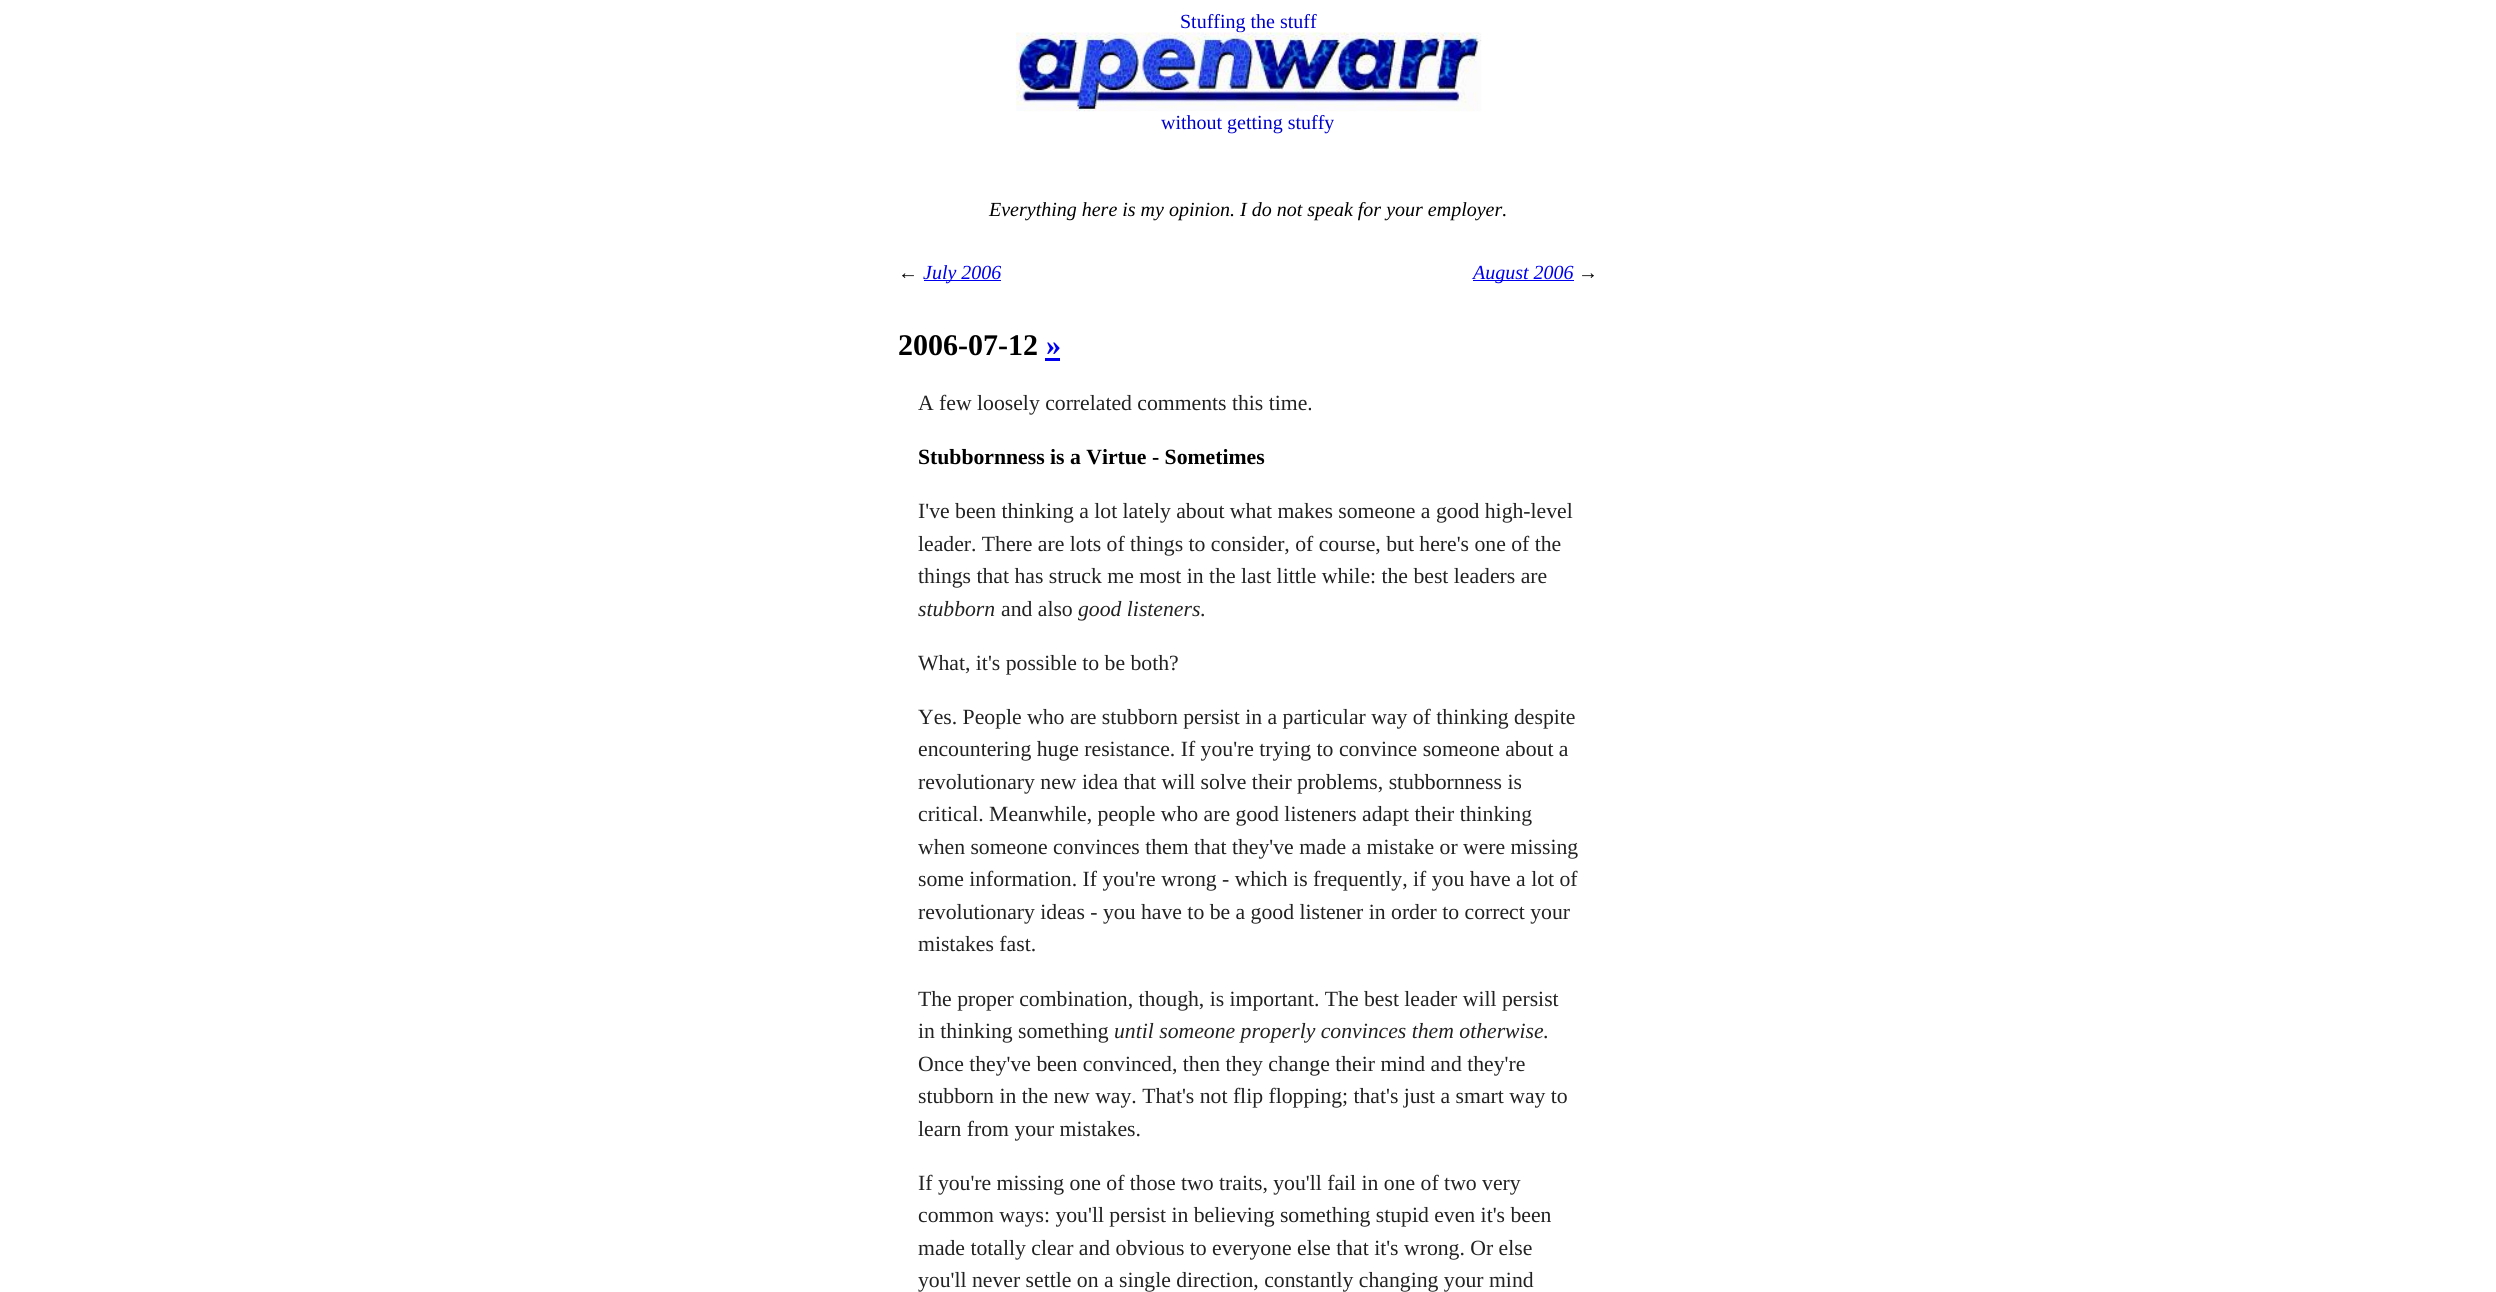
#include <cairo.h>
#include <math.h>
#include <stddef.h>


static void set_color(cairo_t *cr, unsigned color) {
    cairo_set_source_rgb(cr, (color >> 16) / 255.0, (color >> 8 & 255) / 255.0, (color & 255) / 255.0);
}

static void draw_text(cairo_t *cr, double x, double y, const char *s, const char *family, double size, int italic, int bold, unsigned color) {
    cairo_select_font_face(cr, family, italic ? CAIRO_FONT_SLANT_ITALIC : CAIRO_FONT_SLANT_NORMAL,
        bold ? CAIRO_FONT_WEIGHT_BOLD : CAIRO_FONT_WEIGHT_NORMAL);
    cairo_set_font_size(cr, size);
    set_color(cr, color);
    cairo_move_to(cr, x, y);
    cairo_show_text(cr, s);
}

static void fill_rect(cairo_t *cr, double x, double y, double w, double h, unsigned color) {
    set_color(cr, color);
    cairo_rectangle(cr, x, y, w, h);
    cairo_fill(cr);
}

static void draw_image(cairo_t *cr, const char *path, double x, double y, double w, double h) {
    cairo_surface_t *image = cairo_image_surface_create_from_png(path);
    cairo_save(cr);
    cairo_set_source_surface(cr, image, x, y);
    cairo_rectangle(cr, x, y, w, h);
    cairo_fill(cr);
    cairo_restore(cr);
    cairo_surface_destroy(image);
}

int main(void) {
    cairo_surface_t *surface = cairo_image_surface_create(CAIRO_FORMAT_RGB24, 2496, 1292);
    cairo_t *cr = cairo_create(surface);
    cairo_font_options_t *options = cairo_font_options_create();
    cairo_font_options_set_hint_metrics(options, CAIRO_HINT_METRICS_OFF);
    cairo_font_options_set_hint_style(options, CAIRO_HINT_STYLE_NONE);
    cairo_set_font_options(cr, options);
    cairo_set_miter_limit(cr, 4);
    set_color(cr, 0xFFFFFF);
    cairo_paint(cr);
    draw_text(cr, 1180, 28, "Stuffing the stuff", "Liberation Serif", 20, 0, 0, 0x0000CC);
    draw_image(cr, "assets/img1.png", 1016, 32, 466, 80);
    draw_text(cr, 1161, 129, "without getting stuffy", "Liberation Serif", 20, 0, 0, 0x0000CC);
    draw_text(cr, 989, 216, "Everything here is my opinion. I do not speak for your employer.", "Liberation Serif", 20, 1, 0, 0x000000);
    draw_text(cr, 898, 279, "←", "Liberation Serif", 20, 1, 0, 0x000000);
    fill_rect(cr, 924, 280, 77, 1, 0x0000EE);
    draw_text(cr, 923, 279, "July 2006", "Liberation Serif", 20, 1, 0, 0x0000EE);
    fill_rect(cr, 1473, 280, 101, 1, 0x0000EE);
    draw_text(cr, 1473, 279, "August 2006", "Liberation Serif", 20, 1, 0, 0x0000EE);
    draw_text(cr, 1578, 279, "→", "Liberation Serif", 20, 1, 0, 0x000000);
    draw_text(cr, 898, 355, "2006-07-12", "Liberation Serif", 30, 0, 1, 0x000000);
    draw_text(cr, 1046, 355, "»", "Liberation Serif", 30, 0, 1, 0x0000EE);
    fill_rect(cr, 1045, 358, 15, 3, 0x0000EE);
    draw_text(cr, 918, 410, "A few loosely correlated comments this time.", "Liberation Serif", 21.7, 0, 0, 0x222222);
    draw_text(cr, 918, 464, "Stubbornness is a Virtue - Sometimes", "Liberation Serif", 21.7, 0, 1, 0x000000);
    draw_text(cr, 918, 518, "I've been thinking a lot lately about what makes someone a good high-level", "Liberation Serif", 21.7, 0, 0, 0x222222);
    draw_text(cr, 918, 551, "leader. There are lots of things to consider, of course, but here's one of the", "Liberation Serif", 21.7, 0, 0, 0x222222);
    draw_text(cr, 918, 583, "things that has struck me most in the last little while: the best leaders are", "Liberation Serif", 21.7, 0, 0, 0x222222);
    draw_text(cr, 918, 616, "stubborn", "Liberation Serif", 21.7, 1, 0, 0x222222);
    draw_text(cr, 1001, 616, "and also", "Liberation Serif", 21.7, 0, 0, 0x222222);
    draw_text(cr, 1078, 616, "good listeners", "Liberation Serif", 21.7, 1, 0, 0x222222);
    draw_text(cr, 1200, 616, ".", "Liberation Serif", 21.7, 0, 0, 0x222222);
    draw_text(cr, 918, 670, "What, it's possible to be both?", "Liberation Serif", 21.7, 0, 0, 0x222222);
    draw_text(cr, 918, 724, "Yes. People who are stubborn persist in a particular way of thinking despite", "Liberation Serif", 21.7, 0, 0, 0x222222);
    draw_text(cr, 918, 756, "encountering huge resistance. If you're trying to convince someone about a", "Liberation Serif", 21.7, 0, 0, 0x222222);
    draw_text(cr, 918, 789, "revolutionary new idea that will solve their problems, stubbornness is", "Liberation Serif", 21.7, 0, 0, 0x222222);
    draw_text(cr, 918, 821, "critical. Meanwhile, people who are good listeners adapt their thinking", "Liberation Serif", 21.7, 0, 0, 0x222222);
    draw_text(cr, 918, 854, "when someone convinces them that they've made a mistake or were missing", "Liberation Serif", 21.7, 0, 0, 0x222222);
    draw_text(cr, 918, 886, "some information. If you're wrong - which is frequently, if you have a lot of", "Liberation Serif", 21.7, 0, 0, 0x222222);
    draw_text(cr, 918, 919, "revolutionary ideas - you have to be a good listener in order to correct your", "Liberation Serif", 21.7, 0, 0, 0x222222);
    draw_text(cr, 918, 951, "mistakes fast.", "Liberation Serif", 21.7, 0, 0, 0x222222);
    draw_text(cr, 918, 1006, "The proper combination, though, is important. The best leader will persist", "Liberation Serif", 21.7, 0, 0, 0x222222);
    draw_text(cr, 918, 1038, "in thinking something", "Liberation Serif", 21.7, 0, 0, 0x222222);
    draw_text(cr, 1114, 1038, "until someone properly convinces them otherwise", "Liberation Serif", 21.7, 1, 0, 0x222222);
    draw_text(cr, 1543, 1038, ".", "Liberation Serif", 21.7, 0, 0, 0x222222);
    draw_text(cr, 918, 1071, "Once they've been convinced, then they change their mind and they're", "Liberation Serif", 21.7, 0, 0, 0x222222);
    draw_text(cr, 918, 1103, "stubborn in the new way. That's not flip flopping; that's just a smart way to", "Liberation Serif", 21.7, 0, 0, 0x222222);
    draw_text(cr, 918, 1136, "learn from your mistakes.", "Liberation Serif", 21.7, 0, 0, 0x222222);
    draw_text(cr, 918, 1190, "If you're missing one of those two traits, you'll fail in one of two very", "Liberation Serif", 21.7, 0, 0, 0x222222);
    draw_text(cr, 918, 1222, "common ways: you'll persist in believing something stupid even it's been", "Liberation Serif", 21.7, 0, 0, 0x222222);
    draw_text(cr, 918, 1255, "made totally clear and obvious to everyone else that it's wrong. Or else", "Liberation Serif", 21.7, 0, 0, 0x222222);
    draw_text(cr, 918, 1287, "you'll never settle on a single direction, constantly changing your mind", "Liberation Serif", 21.7, 0, 0, 0x222222);
    cairo_surface_write_to_png(surface, "output.png");
    cairo_font_options_destroy(options);
    cairo_destroy(cr);
    cairo_surface_destroy(surface);
    return 0;
}
